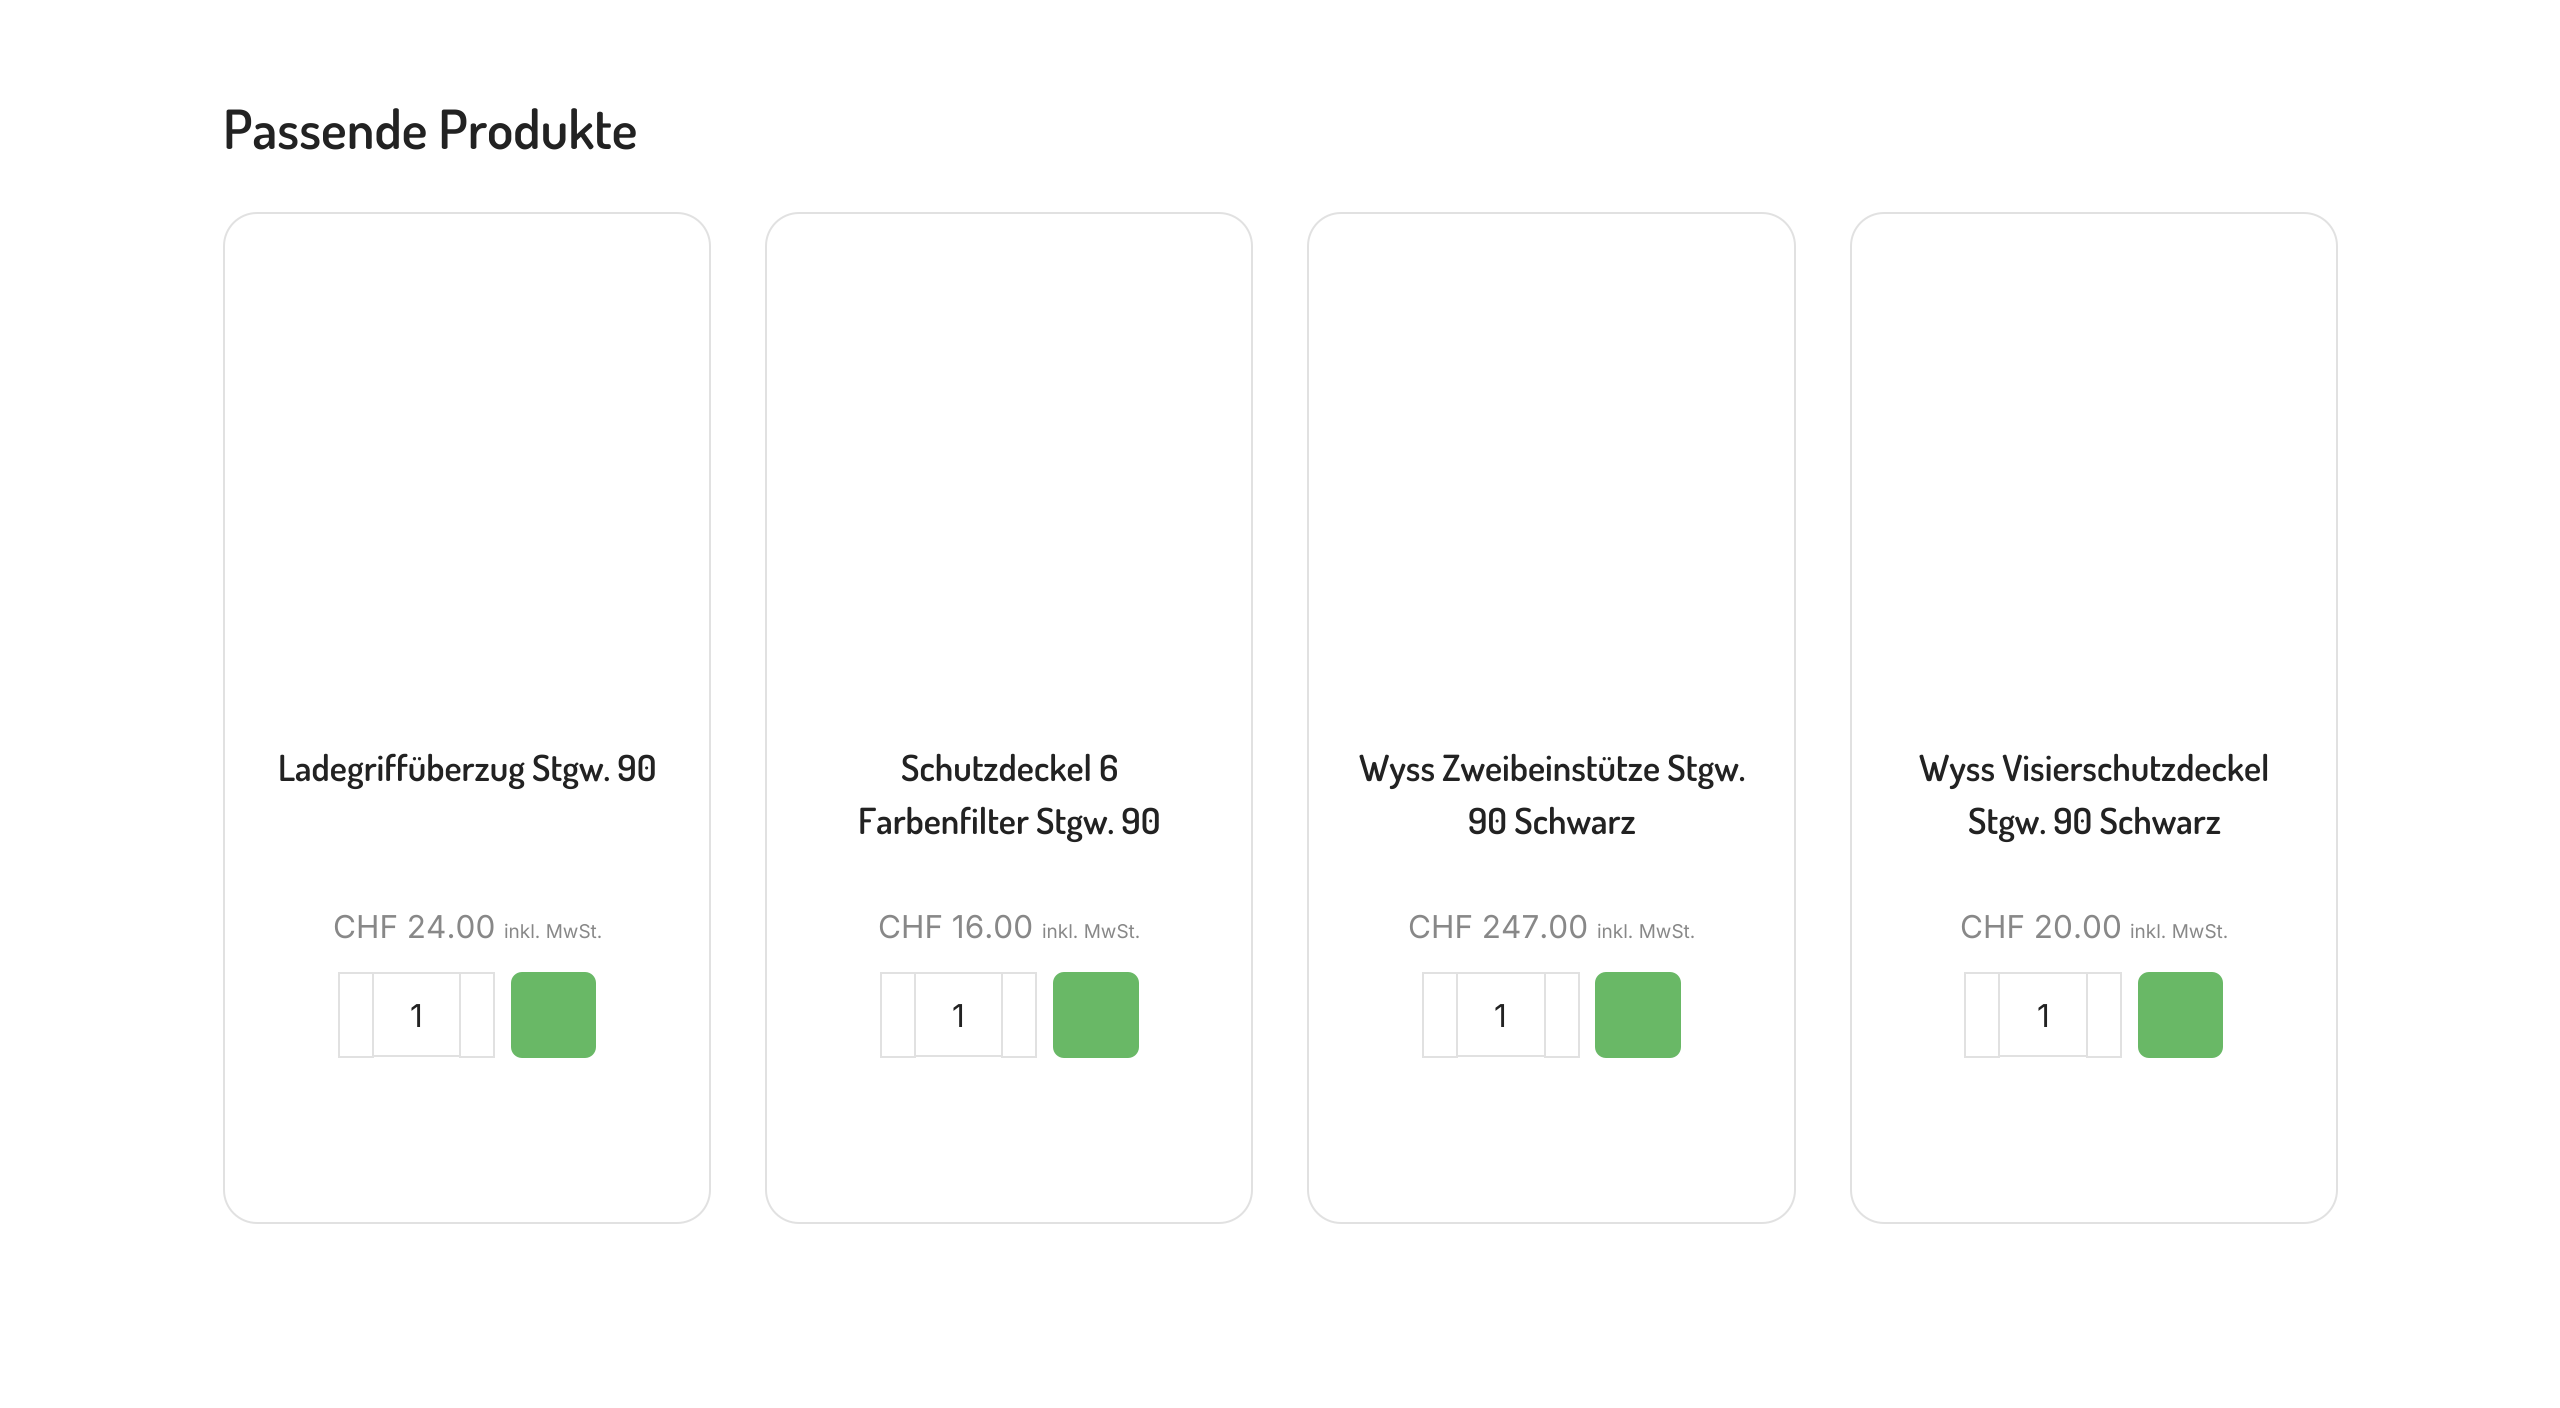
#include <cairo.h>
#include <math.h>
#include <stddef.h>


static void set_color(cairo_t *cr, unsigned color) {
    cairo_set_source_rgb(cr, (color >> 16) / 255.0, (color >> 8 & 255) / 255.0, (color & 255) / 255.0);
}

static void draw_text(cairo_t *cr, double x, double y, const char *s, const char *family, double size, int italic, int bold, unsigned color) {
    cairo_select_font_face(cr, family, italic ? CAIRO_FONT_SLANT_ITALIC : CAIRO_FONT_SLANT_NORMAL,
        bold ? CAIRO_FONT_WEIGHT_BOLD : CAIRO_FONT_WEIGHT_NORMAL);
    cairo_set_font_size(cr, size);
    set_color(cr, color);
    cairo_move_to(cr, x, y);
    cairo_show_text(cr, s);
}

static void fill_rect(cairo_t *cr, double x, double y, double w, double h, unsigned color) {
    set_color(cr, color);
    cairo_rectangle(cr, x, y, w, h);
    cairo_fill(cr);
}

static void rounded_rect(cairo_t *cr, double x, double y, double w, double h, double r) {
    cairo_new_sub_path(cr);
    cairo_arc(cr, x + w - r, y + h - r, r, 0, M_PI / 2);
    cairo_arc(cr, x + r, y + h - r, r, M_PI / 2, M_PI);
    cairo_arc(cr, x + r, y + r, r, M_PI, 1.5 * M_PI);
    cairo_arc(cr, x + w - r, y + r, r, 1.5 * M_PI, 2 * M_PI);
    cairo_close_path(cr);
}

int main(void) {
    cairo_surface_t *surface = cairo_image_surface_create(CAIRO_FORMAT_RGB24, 2560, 1408);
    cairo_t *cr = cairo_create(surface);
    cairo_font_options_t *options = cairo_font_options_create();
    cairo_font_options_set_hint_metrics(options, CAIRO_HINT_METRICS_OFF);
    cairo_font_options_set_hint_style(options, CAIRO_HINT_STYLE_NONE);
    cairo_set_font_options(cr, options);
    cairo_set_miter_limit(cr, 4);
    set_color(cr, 0xFFFFFF);
    cairo_paint(cr);
    draw_text(cr, 223, 149, "Passende Produkte", "Dosis SemiBold", 54, 0, 0, 0x222222);
    rounded_rect(cr, 224, 213, 486, 1010, 33);
    set_color(cr, 0xE1E1E1);
    cairo_stroke(cr);
    draw_text(cr, 278, 781, "Ladegriffüberzug Stgw. 90", "Dosis SemiBold", 36, 0, 0, 0x222222);
    draw_text(cr, 333, 938, "CHF 24.00", "Inter", 31.5, 0, 0, 0x888888);
    draw_text(cr, 504, 938, "inkl. MwSt.", "Inter", 19, 0, 0, 0x888888);
    cairo_rectangle(cr, 339, 973, 34, 84);
    set_color(cr, 0xE1E1E1);
    cairo_stroke(cr);
    fill_rect(cr, 374, 972, 85, 2, 0xE1E1E1);
    fill_rect(cr, 374, 1055, 85, 2, 0xE1E1E1);
    draw_text(cr, 410, 1027, "1", "Inter", 31.5, 0, 0, 0x222222);
    cairo_rectangle(cr, 460, 973, 34, 84);
    set_color(cr, 0xE1E1E1);
    cairo_stroke(cr);
    set_color(cr, 0x69B866);
    rounded_rect(cr, 511, 972, 85, 86, 11);
    cairo_fill(cr);
    rounded_rect(cr, 766, 213, 486, 1010, 33);
    set_color(cr, 0xE1E1E1);
    cairo_stroke(cr);
    draw_text(cr, 901, 781, "Schutzdeckel 6", "Dosis SemiBold", 36, 0, 0, 0x222222);
    draw_text(cr, 858, 834, "Farbenfilter Stgw. 90", "Dosis SemiBold", 36, 0, 0, 0x222222);
    draw_text(cr, 878, 938, "CHF 16.00", "Inter", 31.5, 0, 0, 0x888888);
    draw_text(cr, 1042, 938, "inkl. MwSt.", "Inter", 19, 0, 0, 0x888888);
    cairo_rectangle(cr, 881, 973, 34, 84);
    set_color(cr, 0xE1E1E1);
    cairo_stroke(cr);
    fill_rect(cr, 916, 972, 85, 2, 0xE1E1E1);
    fill_rect(cr, 916, 1055, 85, 2, 0xE1E1E1);
    draw_text(cr, 952, 1027, "1", "Inter", 31.5, 0, 0, 0x222222);
    cairo_rectangle(cr, 1002, 973, 34, 84);
    set_color(cr, 0xE1E1E1);
    cairo_stroke(cr);
    set_color(cr, 0x69B866);
    rounded_rect(cr, 1053, 972, 86, 86, 11);
    cairo_fill(cr);
    rounded_rect(cr, 1308, 213, 487, 1010, 33);
    set_color(cr, 0xE1E1E1);
    cairo_stroke(cr);
    draw_text(cr, 1359, 781, "Wyss Zweibeinstütze Stgw.", "Dosis SemiBold", 36, 0, 0, 0x222222);
    draw_text(cr, 1468, 834, "90 Schwarz", "Dosis SemiBold", 36, 0, 0, 0x222222);
    draw_text(cr, 1408, 938, "CHF 247.00", "Inter", 31.5, 0, 0, 0x888888);
    draw_text(cr, 1597, 938, "inkl. MwSt.", "Inter", 19, 0, 0, 0x888888);
    cairo_rectangle(cr, 1423, 973, 34, 84);
    set_color(cr, 0xE1E1E1);
    cairo_stroke(cr);
    fill_rect(cr, 1458, 972, 86, 2, 0xE1E1E1);
    fill_rect(cr, 1458, 1055, 86, 2, 0xE1E1E1);
    draw_text(cr, 1494, 1027, "1", "Inter", 31.5, 0, 0, 0x222222);
    cairo_rectangle(cr, 1545, 973, 34, 84);
    set_color(cr, 0xE1E1E1);
    cairo_stroke(cr);
    set_color(cr, 0x69B866);
    rounded_rect(cr, 1595, 972, 86, 86, 11);
    cairo_fill(cr);
    rounded_rect(cr, 1851, 213, 486, 1010, 33);
    set_color(cr, 0xE1E1E1);
    cairo_stroke(cr);
    draw_text(cr, 1919, 781, "Wyss Visierschutzdeckel", "Dosis SemiBold", 36, 0, 0, 0x222222);
    draw_text(cr, 1968, 834, "Stgw. 90 Schwarz", "Dosis SemiBold", 36, 0, 0, 0x222222);
    draw_text(cr, 1960, 938, "CHF 20.00", "Inter", 31.5, 0, 0, 0x888888);
    draw_text(cr, 2130, 938, "inkl. MwSt.", "Inter", 19, 0, 0, 0x888888);
    cairo_rectangle(cr, 1965, 973, 34, 84);
    set_color(cr, 0xE1E1E1);
    cairo_stroke(cr);
    fill_rect(cr, 2000, 972, 86, 2, 0xE1E1E1);
    fill_rect(cr, 2000, 1055, 86, 2, 0xE1E1E1);
    draw_text(cr, 2037, 1027, "1", "Inter", 31.5, 0, 0, 0x222222);
    cairo_rectangle(cr, 2087, 973, 34, 84);
    set_color(cr, 0xE1E1E1);
    cairo_stroke(cr);
    set_color(cr, 0x69B866);
    rounded_rect(cr, 2138, 972, 85, 86, 11);
    cairo_fill(cr);
    cairo_surface_write_to_png(surface, "output.png");
    cairo_font_options_destroy(options);
    cairo_destroy(cr);
    cairo_surface_destroy(surface);
    return 0;
}
